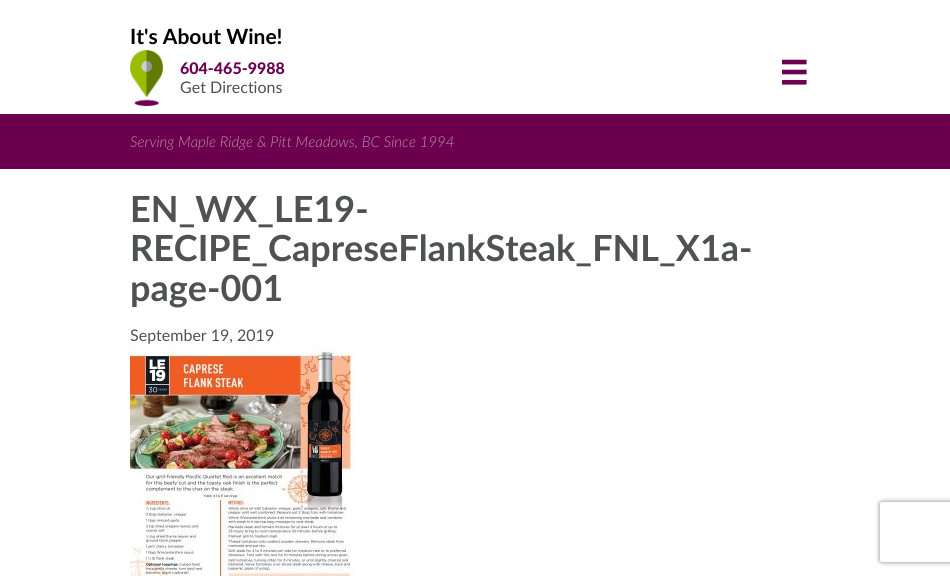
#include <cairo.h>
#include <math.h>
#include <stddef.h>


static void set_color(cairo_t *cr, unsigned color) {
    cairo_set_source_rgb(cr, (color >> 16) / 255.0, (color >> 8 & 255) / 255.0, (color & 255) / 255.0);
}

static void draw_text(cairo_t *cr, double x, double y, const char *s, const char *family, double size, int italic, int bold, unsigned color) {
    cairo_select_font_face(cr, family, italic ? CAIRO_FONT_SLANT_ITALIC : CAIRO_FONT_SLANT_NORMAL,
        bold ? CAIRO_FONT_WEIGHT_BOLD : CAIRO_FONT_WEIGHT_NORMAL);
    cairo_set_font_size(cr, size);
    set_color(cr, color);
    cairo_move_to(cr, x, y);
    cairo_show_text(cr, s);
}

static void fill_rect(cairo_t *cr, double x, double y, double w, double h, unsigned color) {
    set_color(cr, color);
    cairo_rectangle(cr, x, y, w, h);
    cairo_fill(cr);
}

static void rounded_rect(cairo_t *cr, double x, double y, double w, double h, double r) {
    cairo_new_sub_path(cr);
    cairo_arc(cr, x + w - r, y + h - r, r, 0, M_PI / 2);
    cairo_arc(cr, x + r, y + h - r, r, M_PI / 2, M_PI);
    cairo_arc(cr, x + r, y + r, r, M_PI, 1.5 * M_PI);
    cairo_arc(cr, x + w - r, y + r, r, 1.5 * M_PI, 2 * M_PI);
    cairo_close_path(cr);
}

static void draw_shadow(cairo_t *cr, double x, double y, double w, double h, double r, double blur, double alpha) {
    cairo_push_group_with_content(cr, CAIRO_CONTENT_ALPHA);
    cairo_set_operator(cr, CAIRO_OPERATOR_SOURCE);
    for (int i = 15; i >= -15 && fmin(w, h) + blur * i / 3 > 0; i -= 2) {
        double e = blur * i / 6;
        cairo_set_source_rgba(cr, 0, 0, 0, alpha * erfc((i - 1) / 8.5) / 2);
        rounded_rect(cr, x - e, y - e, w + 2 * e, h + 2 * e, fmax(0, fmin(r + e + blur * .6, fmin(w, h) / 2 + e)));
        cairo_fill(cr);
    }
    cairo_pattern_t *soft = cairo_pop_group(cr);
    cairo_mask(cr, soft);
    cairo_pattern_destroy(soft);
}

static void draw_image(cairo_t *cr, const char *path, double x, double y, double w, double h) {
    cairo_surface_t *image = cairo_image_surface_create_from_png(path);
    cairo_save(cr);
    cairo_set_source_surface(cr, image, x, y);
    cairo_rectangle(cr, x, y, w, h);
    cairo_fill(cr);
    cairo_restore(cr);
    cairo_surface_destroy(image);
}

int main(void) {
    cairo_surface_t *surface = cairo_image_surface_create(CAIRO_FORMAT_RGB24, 950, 576);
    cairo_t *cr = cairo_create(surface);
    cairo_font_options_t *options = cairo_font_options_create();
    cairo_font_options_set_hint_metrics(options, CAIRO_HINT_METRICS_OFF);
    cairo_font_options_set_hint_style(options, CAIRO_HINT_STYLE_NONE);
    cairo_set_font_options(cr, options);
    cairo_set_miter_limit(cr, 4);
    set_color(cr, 0xFFFFFF);
    cairo_paint(cr);
    draw_text(cr, 130, 44, "It's About Wine!", "Lato", 21, 0, 1, 0x000000);
    draw_image(cr, "assets/img1.png", 130, 50, 33, 56);
    draw_text(cr, 180, 74, "604-465-9988", "Lato Black", 16, 0, 0, 0x6C004F);
    draw_text(cr, 180, 93, "Get Directions", "Lato", 16, 0, 0, 0x505153);
    cairo_save(cr);
    cairo_translate(cr, 782, 57);
    cairo_rotate(cr, 90 * M_PI / 180);
    draw_text(cr, 0, 0, "III", "Lato", 34, 0, 1, 0x6C004F);
    cairo_restore(cr);
    fill_rect(cr, 0, 114, 950, 55, 0x6C004F);
    draw_text(cr, 130, 147, "Serving Maple Ridge & Pitt Meadows, BC Since 1994", "Lato Light", 15, 1, 0, 0xB992AD);
    draw_text(cr, 130, 222, "EN_WX_LE19-", "Lato", 36, 0, 1, 0x505153);
    draw_text(cr, 130, 261, "RECIPE_CapreseFlankSteak_FNL_X1a-", "Lato", 36, 0, 1, 0x505153);
    draw_text(cr, 130, 301, "page-001", "Lato", 36, 0, 1, 0x505153);
    draw_text(cr, 130, 341, "September 19, 2019", "Lato", 16, 0, 0, 0x505153);
    draw_image(cr, "assets/img2.png", 130, 347, 224, 229);
    cairo_save(cr);
    cairo_set_fill_rule(cr, CAIRO_FILL_RULE_EVEN_ODD);
    cairo_new_path(cr);
    cairo_move_to(cr, 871, 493);
    cairo_line_to(cr, 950, 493);
    cairo_line_to(cr, 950, 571);
    cairo_line_to(cr, 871, 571);
    cairo_close_path(cr);
    cairo_move_to(cr, 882, 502);
    cairo_line_to(cr, 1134, 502);
    cairo_curve_to(cr, 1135, 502, 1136, 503, 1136, 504);
    cairo_line_to(cr, 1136, 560);
    cairo_curve_to(cr, 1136, 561, 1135, 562, 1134, 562);
    cairo_line_to(cr, 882, 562);
    cairo_curve_to(cr, 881, 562, 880, 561, 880, 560);
    cairo_line_to(cr, 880, 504);
    cairo_curve_to(cr, 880, 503, 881, 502, 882, 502);
    cairo_close_path(cr);
    cairo_clip(cr);
    set_color(cr, 0x808080);
    draw_shadow(cr, 880, 502, 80, 60, 2, 2.5, 1);
    cairo_restore(cr);
    cairo_surface_write_to_png(surface, "output.png");
    cairo_font_options_destroy(options);
    cairo_destroy(cr);
    cairo_surface_destroy(surface);
    return 0;
}
